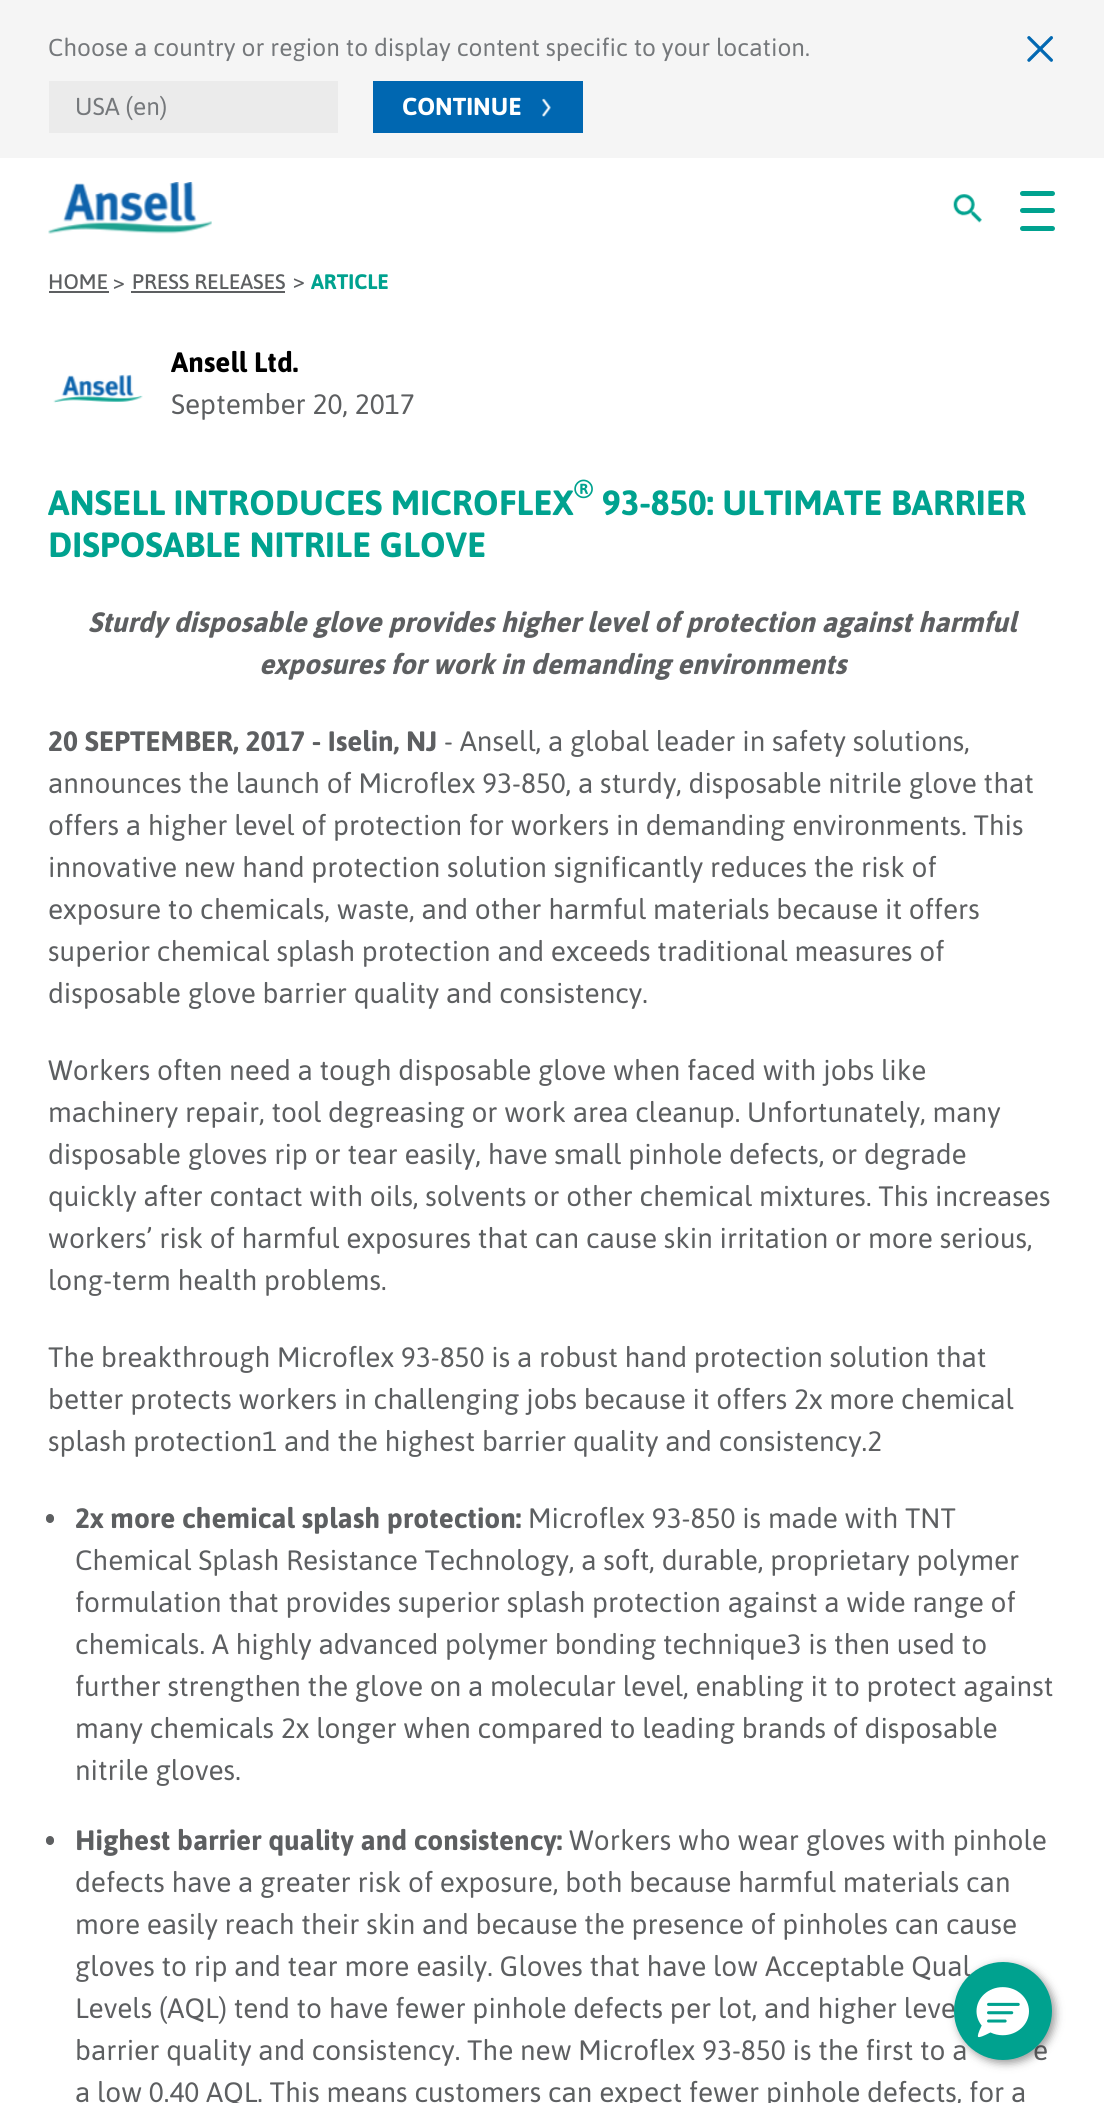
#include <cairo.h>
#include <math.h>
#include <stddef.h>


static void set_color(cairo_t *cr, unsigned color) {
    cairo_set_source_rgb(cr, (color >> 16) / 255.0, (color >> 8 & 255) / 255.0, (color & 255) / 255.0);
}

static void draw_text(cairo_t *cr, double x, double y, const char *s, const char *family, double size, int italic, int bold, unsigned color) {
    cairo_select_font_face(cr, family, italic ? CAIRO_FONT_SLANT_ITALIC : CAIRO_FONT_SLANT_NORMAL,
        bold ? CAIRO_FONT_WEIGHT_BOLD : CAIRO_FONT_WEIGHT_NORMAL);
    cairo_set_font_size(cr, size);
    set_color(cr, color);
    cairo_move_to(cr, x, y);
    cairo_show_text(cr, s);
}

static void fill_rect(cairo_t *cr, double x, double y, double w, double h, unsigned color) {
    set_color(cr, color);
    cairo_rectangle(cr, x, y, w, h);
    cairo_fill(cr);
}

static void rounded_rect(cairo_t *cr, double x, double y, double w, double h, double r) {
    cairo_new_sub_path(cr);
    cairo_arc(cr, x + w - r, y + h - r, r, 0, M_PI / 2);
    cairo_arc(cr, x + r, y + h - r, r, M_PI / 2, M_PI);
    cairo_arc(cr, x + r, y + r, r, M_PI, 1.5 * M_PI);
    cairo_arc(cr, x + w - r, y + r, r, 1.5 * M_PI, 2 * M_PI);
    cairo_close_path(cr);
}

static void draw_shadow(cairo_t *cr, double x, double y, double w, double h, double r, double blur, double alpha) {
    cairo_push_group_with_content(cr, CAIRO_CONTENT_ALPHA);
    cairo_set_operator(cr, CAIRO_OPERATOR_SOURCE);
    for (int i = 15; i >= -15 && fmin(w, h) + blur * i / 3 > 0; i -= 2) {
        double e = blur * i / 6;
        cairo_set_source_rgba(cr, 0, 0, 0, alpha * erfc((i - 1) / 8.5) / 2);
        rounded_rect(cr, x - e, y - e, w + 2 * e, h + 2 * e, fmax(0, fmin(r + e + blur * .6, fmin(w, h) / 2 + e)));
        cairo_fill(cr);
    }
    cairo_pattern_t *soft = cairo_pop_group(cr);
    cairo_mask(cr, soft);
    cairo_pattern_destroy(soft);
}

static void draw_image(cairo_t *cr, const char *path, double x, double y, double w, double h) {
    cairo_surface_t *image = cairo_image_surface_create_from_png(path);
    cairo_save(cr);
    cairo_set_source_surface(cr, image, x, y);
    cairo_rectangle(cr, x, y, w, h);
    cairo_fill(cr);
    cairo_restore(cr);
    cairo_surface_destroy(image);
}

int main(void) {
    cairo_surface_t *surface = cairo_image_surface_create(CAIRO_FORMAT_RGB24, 1104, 2103);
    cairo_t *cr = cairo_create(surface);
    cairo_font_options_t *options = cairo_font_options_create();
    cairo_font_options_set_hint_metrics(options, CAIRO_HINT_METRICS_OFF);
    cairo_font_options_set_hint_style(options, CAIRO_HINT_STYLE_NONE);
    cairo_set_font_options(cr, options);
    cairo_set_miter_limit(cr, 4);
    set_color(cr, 0xFFFFFF);
    cairo_paint(cr);
    fill_rect(cr, 0, 0, 1104, 158, 0xF5F5F5);
    draw_text(cr, 48, 56, "Choose a country or region to display content specific to your location.", "Asap", 24.5, 0, 0, 0x75787B);
    draw_image(cr, "assets/img1.png", 1027, 36, 26, 26);
    fill_rect(cr, 49, 81, 289, 52, 0xEBEBEB);
    draw_text(cr, 75, 115, "USA (en)", "Asap", 24.5, 0, 0, 0x75787B);
    fill_rect(cr, 373, 81, 210, 52, 0x0067B1);
    draw_text(cr, 402, 115, "CONTINUE", "Asap", 24.5, 0, 1, 0xFFFFFF);
    draw_image(cr, "assets/img2.png", 542, 98, 9, 19);
    draw_image(cr, "assets/img3.png", 48, 182, 164, 52);
    draw_image(cr, "assets/img4.png", 953, 194, 29, 29);
    set_color(cr, 0x00A28F);
    rounded_rect(cr, 1020, 191, 35, 5, 2.5);
    cairo_fill(cr);
    rounded_rect(cr, 1020, 208, 35, 5, 2.5);
    cairo_fill(cr);
    rounded_rect(cr, 1020, 226, 35, 5, 2.5);
    cairo_fill(cr);
    draw_text(cr, 48, 289, "HOME >", "Asap Medium", 21, 0, 0, 0x5D5F61);
    fill_rect(cr, 49, 291, 60, 2, 0x5D5F61);
    draw_text(cr, 132, 289, "PRESS RELEASES", "Asap Medium", 21, 0, 0, 0x5D5F61);
    fill_rect(cr, 131, 291, 154, 2, 0x5D5F61);
    draw_text(cr, 293, 288, ">", "Asap Medium", 21, 0, 0, 0x5D5F61);
    draw_text(cr, 311, 289, "ARTICLE", "Asap", 21, 0, 1, 0x00A28F);
    draw_image(cr, "assets/img5.png", 53, 374, 90, 29);
    draw_text(cr, 171, 372, "Ansell Ltd.", "Asap", 28, 0, 1, 0x000000);
    draw_text(cr, 171, 414, "September 20, 2017", "Asap", 28, 0, 0, 0x5D5F61);
    draw_text(cr, 48, 515, "ANSELL INTRODUCES MICROFLEX", "Asap", 35, 0, 1, 0x00A28F);
    draw_text(cr, 574, 498, "®", "Asap", 26, 0, 1, 0x00A28F);
    draw_text(cr, 602, 515, "93-850: ULTIMATE BARRIER", "Asap", 35, 0, 1, 0x00A28F);
    draw_text(cr, 48, 557, "DISPOSABLE NITRILE GLOVE", "Asap", 35, 0, 1, 0x00A28F);
    draw_text(cr, 88, 632, "Sturdy disposable glove provides higher level of protection against harmful", "Asap", 28, 1, 1, 0x5D5F61);
    draw_text(cr, 259, 674, "exposures for work in demanding environments", "Asap", 28, 1, 1, 0x5D5F61);
    draw_text(cr, 48, 751, "20 SEPTEMBER, 2017 - Iselin, NJ", "Asap", 28, 0, 1, 0x5D5F61);
    draw_text(cr, 444, 751, "- Ansell, a global leader in safety solutions,", "Asap", 28, 0, 0, 0x5D5F61);
    draw_text(cr, 48, 793, "announces the launch of Microflex 93-850, a sturdy, disposable nitrile glove that", "Asap", 28, 0, 0, 0x5D5F61);
    draw_text(cr, 48, 835, "offers a higher level of protection for workers in demanding environments. This", "Asap", 28, 0, 0, 0x5D5F61);
    draw_text(cr, 48, 877, "innovative new hand protection solution significantly reduces the risk of", "Asap", 28, 0, 0, 0x5D5F61);
    draw_text(cr, 48, 919, "exposure to chemicals, waste, and other harmful materials because it offers", "Asap", 28, 0, 0, 0x5D5F61);
    draw_text(cr, 48, 961, "superior chemical splash protection and exceeds traditional measures of", "Asap", 28, 0, 0, 0x5D5F61);
    draw_text(cr, 48, 1003, "disposable glove barrier quality and consistency.", "Asap", 28, 0, 0, 0x5D5F61);
    draw_text(cr, 48, 1080, "Workers often need a tough disposable glove when faced with jobs like", "Asap", 28, 0, 0, 0x5D5F61);
    draw_text(cr, 48, 1122, "machinery repair, tool degreasing or work area cleanup. Unfortunately, many", "Asap", 28, 0, 0, 0x5D5F61);
    draw_text(cr, 48, 1164, "disposable gloves rip or tear easily, have small pinhole defects, or degrade", "Asap", 28, 0, 0, 0x5D5F61);
    draw_text(cr, 48, 1206, "quickly after contact with oils, solvents or other chemical mixtures. This increases", "Asap", 28, 0, 0, 0x5D5F61);
    draw_text(cr, 48, 1248, "workers’ risk of harmful exposures that can cause skin irritation or more serious,", "Asap", 28, 0, 0, 0x5D5F61);
    draw_text(cr, 48, 1290, "long-term health problems.", "Asap", 28, 0, 0, 0x5D5F61);
    draw_text(cr, 48, 1367, "The breakthrough Microflex 93-850 is a robust hand protection solution that", "Asap", 28, 0, 0, 0x5D5F61);
    draw_text(cr, 48, 1409, "better protects workers in challenging jobs because it offers 2x more chemical", "Asap", 28, 0, 0, 0x5D5F61);
    draw_text(cr, 48, 1451, "splash protection1 and the highest barrier quality and consistency.2", "Asap", 28, 0, 0, 0x5D5F61);
    rounded_rect(cr, 46, 1514, 8, 9, 4);
    cairo_fill(cr);
    draw_text(cr, 75, 1528, "2x more chemical splash protection:", "Asap", 28, 0, 1, 0x5D5F61);
    draw_text(cr, 528, 1528, "Microflex 93-850 is made with TNT", "Asap", 28, 0, 0, 0x5D5F61);
    draw_text(cr, 75, 1570, "Chemical Splash Resistance Technology, a soft, durable, proprietary polymer", "Asap", 28, 0, 0, 0x5D5F61);
    draw_text(cr, 75, 1612, "formulation that provides superior splash protection against a wide range of", "Asap", 28, 0, 0, 0x5D5F61);
    draw_text(cr, 75, 1654, "chemicals. A highly advanced polymer bonding technique3 is then used to", "Asap", 28, 0, 0, 0x5D5F61);
    draw_text(cr, 75, 1696, "further strengthen the glove on a molecular level, enabling it to protect against", "Asap", 28, 0, 0, 0x5D5F61);
    draw_text(cr, 75, 1738, "many chemicals 2x longer when compared to leading brands of disposable", "Asap", 28, 0, 0, 0x5D5F61);
    draw_text(cr, 75, 1780, "nitrile gloves.", "Asap", 28, 0, 0, 0x5D5F61);
    rounded_rect(cr, 46, 1836, 8, 9, 4);
    cairo_fill(cr);
    draw_text(cr, 75, 1850, "Highest barrier quality and consistency:", "Asap", 28, 0, 1, 0x5D5F61);
    draw_text(cr, 569, 1850, "Workers who wear gloves with pinhole", "Asap", 28, 0, 0, 0x5D5F61);
    draw_text(cr, 75, 1892, "defects have a greater risk of exposure, both because harmful materials can", "Asap", 28, 0, 0, 0x5D5F61);
    draw_text(cr, 75, 1934, "more easily reach their skin and because the presence of pinholes can cause", "Asap", 28, 0, 0, 0x5D5F61);
    draw_text(cr, 75, 1976, "gloves to rip and tear more easily. Gloves that have low Acceptable Qual", "Asap", 28, 0, 0, 0x5D5F61);
    draw_text(cr, 75, 2018, "Levels (AQL) tend to have fewer pinhole defects per lot, and higher leve", "Asap", 28, 0, 0, 0x5D5F61);
    draw_text(cr, 75, 2060, "barrier quality and consistency. The new Microflex 93-850 is the first to a", "Asap", 28, 0, 0, 0x5D5F61);
    draw_text(cr, 1033, 2060, "e", "Asap", 28, 0, 0, 0x5D5F61);
    draw_text(cr, 75, 2102, "a low 0.40 AQL. This means customers can expect fewer pinhole defects, for a", "Asap", 28, 0, 0, 0x5D5F61);
    set_color(cr, 0x2D2D2D);
    draw_shadow(cr, 957, 1965, 98, 98, 49, 4.5, 0.5);
    set_color(cr, 0x00A28F);
    cairo_arc(cr, 1003, 2011, 49, 0, 2 * M_PI);
    cairo_fill(cr);
    draw_image(cr, "assets/img6.png", 976, 1987, 53, 51);
    cairo_surface_write_to_png(surface, "output.png");
    cairo_font_options_destroy(options);
    cairo_destroy(cr);
    cairo_surface_destroy(surface);
    return 0;
}
